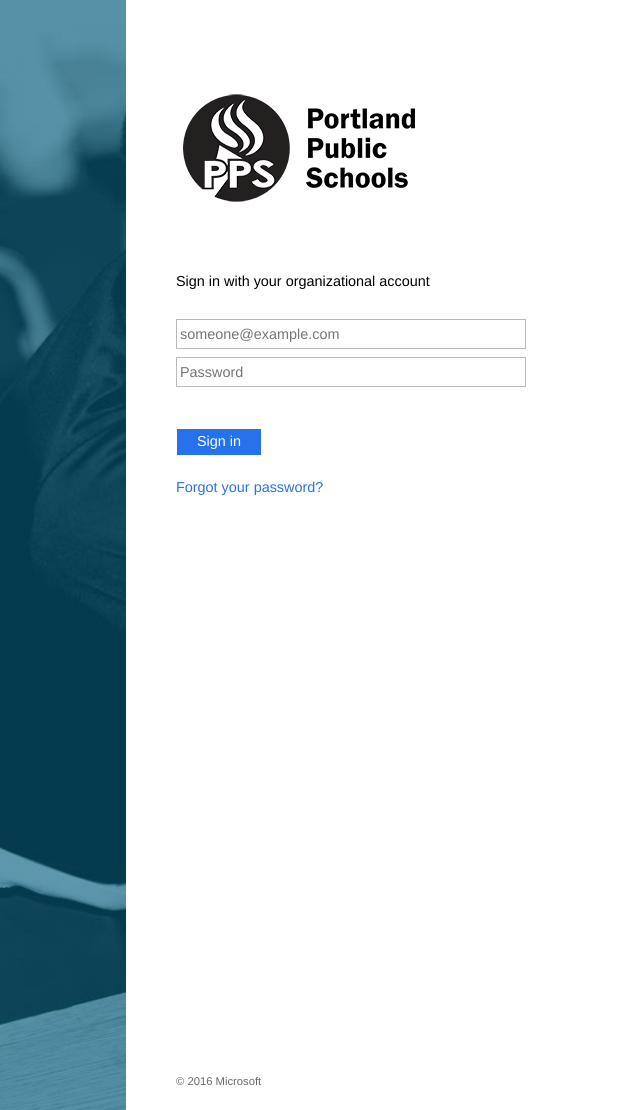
#include <cairo.h>
#include <math.h>
#include <stddef.h>


static void set_color(cairo_t *cr, unsigned color) {
    cairo_set_source_rgb(cr, (color >> 16) / 255.0, (color >> 8 & 255) / 255.0, (color & 255) / 255.0);
}

static void draw_text(cairo_t *cr, double x, double y, const char *s, const char *family, double size, int italic, int bold, unsigned color) {
    cairo_select_font_face(cr, family, italic ? CAIRO_FONT_SLANT_ITALIC : CAIRO_FONT_SLANT_NORMAL,
        bold ? CAIRO_FONT_WEIGHT_BOLD : CAIRO_FONT_WEIGHT_NORMAL);
    cairo_set_font_size(cr, size);
    set_color(cr, color);
    cairo_move_to(cr, x, y);
    cairo_show_text(cr, s);
}

static void fill_rect(cairo_t *cr, double x, double y, double w, double h, unsigned color) {
    set_color(cr, color);
    cairo_rectangle(cr, x, y, w, h);
    cairo_fill(cr);
}

static void draw_image(cairo_t *cr, const char *path, double x, double y, double w, double h) {
    cairo_surface_t *image = cairo_image_surface_create_from_png(path);
    cairo_save(cr);
    cairo_set_source_surface(cr, image, x, y);
    cairo_rectangle(cr, x, y, w, h);
    cairo_fill(cr);
    cairo_restore(cr);
    cairo_surface_destroy(image);
}

int main(void) {
    cairo_surface_t *surface = cairo_image_surface_create(CAIRO_FORMAT_RGB24, 626, 1110);
    cairo_t *cr = cairo_create(surface);
    cairo_font_options_t *options = cairo_font_options_create();
    cairo_font_options_set_hint_metrics(options, CAIRO_HINT_METRICS_OFF);
    cairo_font_options_set_hint_style(options, CAIRO_HINT_STYLE_NONE);
    cairo_set_font_options(cr, options);
    cairo_set_miter_limit(cr, 4);
    set_color(cr, 0xFFFFFF);
    cairo_paint(cr);
    draw_image(cr, "assets/img1.png", 0, 0, 126, 1110);
    draw_image(cr, "assets/img2.png", 183, 94, 232, 108);
    draw_text(cr, 176, 286, "Sign in with your organizational account", "Liberation Sans", 14.4, 0, 0, 0x000000);
    cairo_rectangle(cr, 176.5, 319.5, 349, 29);
    set_color(cr, 0xBABABA);
    cairo_set_line_width(cr, 1);
    cairo_stroke(cr);
    draw_text(cr, 180, 339, "someone@example.com", "Liberation Sans", 14.4, 0, 0, 0x757575);
    cairo_rectangle(cr, 176.5, 357.5, 349, 29);
    set_color(cr, 0xBABABA);
    cairo_stroke(cr);
    draw_text(cr, 180, 377, "Password", "Liberation Sans", 14.4, 0, 0, 0x757575);
    fill_rect(cr, 177, 429, 84, 26, 0x2672EC);
    draw_text(cr, 197, 446, "Sign in", "Liberation Sans", 14.4, 0, 0, 0xFFFFFF);
    draw_text(cr, 176, 492, "Forgot your password?", "Liberation Sans", 14.4, 0, 0, 0x2672EC);
    draw_text(cr, 176, 1085, "© 2016 Microsoft", "Liberation Sans", 11.25, 0, 0, 0x696969);
    cairo_surface_write_to_png(surface, "output.png");
    cairo_font_options_destroy(options);
    cairo_destroy(cr);
    cairo_surface_destroy(surface);
    return 0;
}
